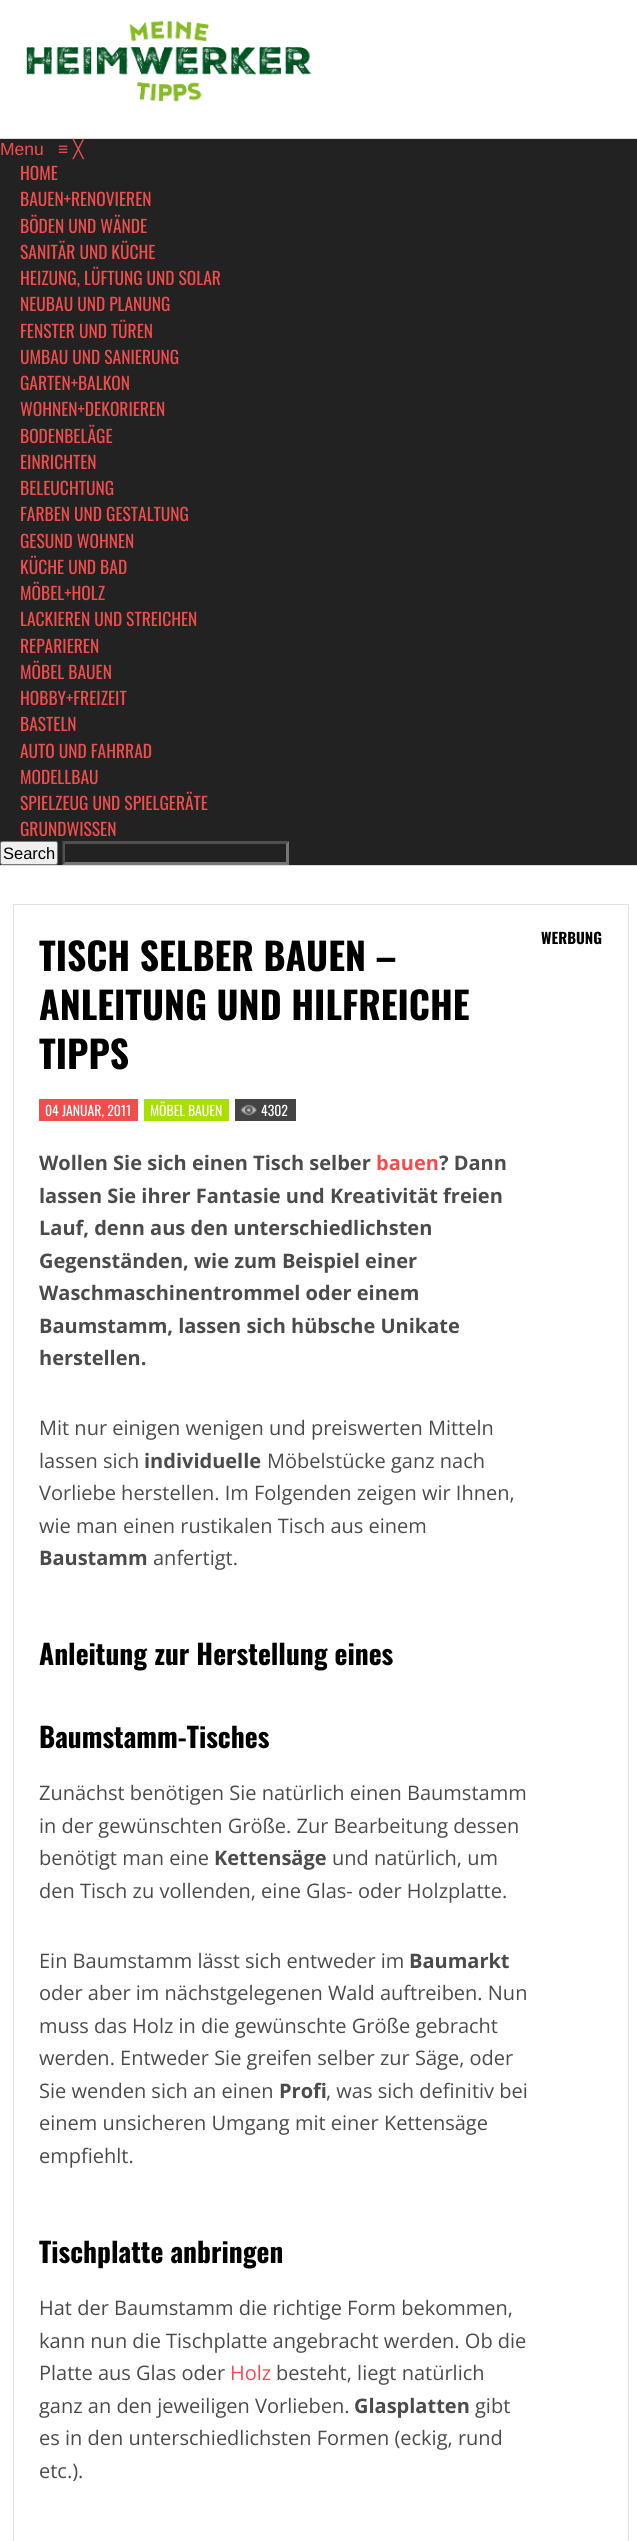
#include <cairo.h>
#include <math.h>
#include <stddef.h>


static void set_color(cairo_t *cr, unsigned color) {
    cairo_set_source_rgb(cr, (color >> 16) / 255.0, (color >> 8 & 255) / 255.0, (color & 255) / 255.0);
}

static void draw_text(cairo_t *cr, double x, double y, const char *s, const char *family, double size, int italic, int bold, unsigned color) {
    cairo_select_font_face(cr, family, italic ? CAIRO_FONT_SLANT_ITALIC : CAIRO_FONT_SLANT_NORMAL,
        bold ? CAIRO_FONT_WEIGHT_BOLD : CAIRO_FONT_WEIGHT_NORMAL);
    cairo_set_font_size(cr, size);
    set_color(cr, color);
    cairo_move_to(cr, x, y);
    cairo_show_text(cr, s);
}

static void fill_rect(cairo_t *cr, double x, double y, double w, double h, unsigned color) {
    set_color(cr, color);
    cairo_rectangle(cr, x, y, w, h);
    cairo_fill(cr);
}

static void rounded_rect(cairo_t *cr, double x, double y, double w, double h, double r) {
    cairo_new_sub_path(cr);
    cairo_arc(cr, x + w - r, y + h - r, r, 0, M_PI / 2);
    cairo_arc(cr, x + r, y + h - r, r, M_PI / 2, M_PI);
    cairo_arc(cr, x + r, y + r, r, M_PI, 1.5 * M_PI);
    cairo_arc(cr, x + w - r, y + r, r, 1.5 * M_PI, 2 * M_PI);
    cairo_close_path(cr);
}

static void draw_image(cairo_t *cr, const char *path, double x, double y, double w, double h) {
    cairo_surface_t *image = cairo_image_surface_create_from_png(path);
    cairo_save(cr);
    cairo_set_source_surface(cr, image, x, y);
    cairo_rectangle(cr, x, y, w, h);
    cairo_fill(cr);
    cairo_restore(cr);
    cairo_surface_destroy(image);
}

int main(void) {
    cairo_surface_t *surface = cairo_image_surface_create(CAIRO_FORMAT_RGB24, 637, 2541);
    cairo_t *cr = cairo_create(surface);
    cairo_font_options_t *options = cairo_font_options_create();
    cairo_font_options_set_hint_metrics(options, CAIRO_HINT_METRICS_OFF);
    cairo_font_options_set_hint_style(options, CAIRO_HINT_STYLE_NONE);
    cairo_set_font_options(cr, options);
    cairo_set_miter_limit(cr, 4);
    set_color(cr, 0xFFFFFF);
    cairo_paint(cr);
    draw_image(cr, "assets/img1.png", 26, 21, 285, 81);
    fill_rect(cr, 0, 139, 637, 726, 0x222222);
    fill_rect(cr, 0, 138, 637, 1, 0xDDDDDD);
    fill_rect(cr, 0, 865, 637, 1, 0xDDDDDD);
    draw_text(cr, 0, 155, "Menu", "Liberation Sans", 17.5, 0, 0, 0xF14D4D);
    draw_text(cr, 58, 155, "≡", "Liberation Sans", 17.5, 0, 0, 0xF14D4D);
    draw_text(cr, 73, 155, "╳", "DejaVu Sans", 17.5, 0, 0, 0xF14D4D);
    draw_text(cr, 20, 180, "HOME", "Oswald", 17.5, 0, 0, 0xF14D4D);
    draw_text(cr, 20, 206, "BAUEN+RENOVIEREN", "Oswald", 17.5, 0, 0, 0xF14D4D);
    draw_text(cr, 20, 233, "BÖDEN UND WÄNDE", "Oswald", 17.5, 0, 0, 0xF14D4D);
    draw_text(cr, 20, 259, "SANITÄR UND KÜCHE", "Oswald", 17.5, 0, 0, 0xF14D4D);
    draw_text(cr, 20, 285, "HEIZUNG, LÜFTUNG UND SOLAR", "Oswald", 17.5, 0, 0, 0xF14D4D);
    draw_text(cr, 20, 311, "NEUBAU UND PLANUNG", "Oswald", 17.5, 0, 0, 0xF14D4D);
    draw_text(cr, 20, 338, "FENSTER UND TÜREN", "Oswald", 17.5, 0, 0, 0xF14D4D);
    draw_text(cr, 20, 364, "UMBAU UND SANIERUNG", "Oswald", 17.5, 0, 0, 0xF14D4D);
    draw_text(cr, 20, 390, "GARTEN+BALKON", "Oswald", 17.5, 0, 0, 0xF14D4D);
    draw_text(cr, 20, 416, "WOHNEN+DEKORIEREN", "Oswald", 17.5, 0, 0, 0xF14D4D);
    draw_text(cr, 20, 443, "BODENBELÄGE", "Oswald", 17.5, 0, 0, 0xF14D4D);
    draw_text(cr, 20, 469, "EINRICHTEN", "Oswald", 17.5, 0, 0, 0xF14D4D);
    draw_text(cr, 20, 495, "BELEUCHTUNG", "Oswald", 17.5, 0, 0, 0xF14D4D);
    draw_text(cr, 20, 521, "FARBEN UND GESTALTUNG", "Oswald", 17.5, 0, 0, 0xF14D4D);
    draw_text(cr, 20, 548, "GESUND WOHNEN", "Oswald", 17.5, 0, 0, 0xF14D4D);
    draw_text(cr, 20, 574, "KÜCHE UND BAD", "Oswald", 17.5, 0, 0, 0xF14D4D);
    draw_text(cr, 20, 600, "MÖBEL+HOLZ", "Oswald", 17.5, 0, 0, 0xF14D4D);
    draw_text(cr, 20, 626, "LACKIEREN UND STREICHEN", "Oswald", 17.5, 0, 0, 0xF14D4D);
    draw_text(cr, 20, 653, "REPARIEREN", "Oswald", 17.5, 0, 0, 0xF14D4D);
    draw_text(cr, 20, 679, "MÖBEL BAUEN", "Oswald", 17.5, 0, 0, 0xF14D4D);
    draw_text(cr, 20, 705, "HOBBY+FREIZEIT", "Oswald", 17.5, 0, 0, 0xF14D4D);
    draw_text(cr, 20, 731, "BASTELN", "Oswald", 17.5, 0, 0, 0xF14D4D);
    draw_text(cr, 20, 758, "AUTO UND FAHRRAD", "Oswald", 17.5, 0, 0, 0xF14D4D);
    draw_text(cr, 20, 784, "MODELLBAU", "Oswald", 17.5, 0, 0, 0xF14D4D);
    draw_text(cr, 20, 810, "SPIELZEUG UND SPIELGERÄTE", "Oswald", 17.5, 0, 0, 0xF14D4D);
    draw_text(cr, 20, 836, "GRUNDWISSEN", "Oswald", 17.5, 0, 0, 0xF14D4D);
    set_color(cr, 0xEFEFEF);
    rounded_rect(cr, 0.5, 841.5, 57, 23, 2);
    cairo_fill_preserve(cr);
    set_color(cr, 0x767676);
    cairo_set_line_width(cr, 1);
    cairo_stroke(cr);
    draw_text(cr, 3, 859, "Search", "Liberation Sans", 16.5, 0, 0, 0x000000);
    set_color(cr, 0x4F4F4F);
    cairo_new_path(cr);
    cairo_move_to(cr, 62, 841);
    cairo_line_to(cr, 289, 841);
    cairo_line_to(cr, 286, 844);
    cairo_line_to(cr, 65, 844);
    cairo_close_path(cr);
    cairo_fill(cr);
    set_color(cr, 0x767676);
    cairo_new_path(cr);
    cairo_move_to(cr, 289, 841);
    cairo_line_to(cr, 289, 865);
    cairo_line_to(cr, 286, 862.5);
    cairo_line_to(cr, 286, 844);
    cairo_close_path(cr);
    cairo_fill(cr);
    cairo_new_path(cr);
    cairo_move_to(cr, 289, 865);
    cairo_line_to(cr, 62, 865);
    cairo_line_to(cr, 65, 862);
    cairo_line_to(cr, 286, 862);
    cairo_close_path(cr);
    cairo_fill(cr);
    set_color(cr, 0x4F4F4F);
    cairo_new_path(cr);
    cairo_move_to(cr, 62.5, 865);
    cairo_line_to(cr, 62.5, 841);
    cairo_line_to(cr, 65, 844);
    cairo_line_to(cr, 65, 862.5);
    cairo_close_path(cr);
    cairo_fill(cr);
    cairo_rectangle(cr, 13.5, 904.5, 615, 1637);
    set_color(cr, 0xE1E1E1);
    cairo_stroke(cr);
    draw_text(cr, 541, 944, "WERBUNG", "Oswald", 15, 0, 1, 0x000000);
    draw_text(cr, 39, 971, "TISCH SELBER BAUEN –", "Oswald", 37.5, 0, 1, 0x000000);
    draw_text(cr, 39, 1020, "ANLEITUNG UND HILFREICHE", "Oswald", 37.5, 0, 1, 0x000000);
    draw_text(cr, 39, 1069, "TIPPS", "Oswald", 37.5, 0, 1, 0x000000);
    fill_rect(cr, 39, 1099, 99, 22, 0xF14D4D);
    draw_text(cr, 45, 1116, "04 JANUAR, 2011", "Oswald", 13.75, 0, 0, 0xFFFFFF);
    fill_rect(cr, 144, 1099, 85, 22, 0xA8E000);
    draw_text(cr, 150, 1116, "MÖBEL BAUEN", "Oswald", 13.75, 0, 0, 0xFFFFFF);
    fill_rect(cr, 235, 1099, 61, 22, 0x444444);
    draw_image(cr, "assets/img2.png", 241, 1104, 16, 12);
    draw_text(cr, 261, 1116, "4302", "Oswald", 13.75, 0, 0, 0xFFFFFF);
    draw_text(cr, 39, 1170, "Wollen Sie sich einen Tisch selber", "Open Sans", 20, 0, 1, 0x4B4B4B);
    draw_text(cr, 376, 1170, "bauen", "Open Sans", 20, 0, 1, 0xF14D4D);
    draw_text(cr, 439, 1170, "? Dann", "Open Sans", 20, 0, 1, 0x4B4B4B);
    draw_text(cr, 39, 1203, "lassen Sie ihrer Fantasie und Kreativität freien", "Open Sans", 20, 0, 1, 0x4B4B4B);
    draw_text(cr, 39, 1235, "Lauf, denn aus den unterschiedlichsten", "Open Sans", 20, 0, 1, 0x4B4B4B);
    draw_text(cr, 39, 1268, "Gegenständen, wie zum Beispiel einer", "Open Sans", 20, 0, 1, 0x4B4B4B);
    draw_text(cr, 39, 1300, "Waschmaschinentrommel oder einem", "Open Sans", 20, 0, 1, 0x4B4B4B);
    draw_text(cr, 39, 1333, "Baumstamm, lassen sich hübsche Unikate", "Open Sans", 20, 0, 1, 0x4B4B4B);
    draw_text(cr, 39, 1365, "herstellen.", "Open Sans", 20, 0, 1, 0x4B4B4B);
    draw_text(cr, 39, 1435, "Mit nur einigen wenigen und preiswerten Mitteln", "Open Sans", 20, 0, 0, 0x4B4B4B);
    draw_text(cr, 39, 1468, "lassen sich", "Open Sans", 20, 0, 0, 0x4B4B4B);
    draw_text(cr, 144, 1468, "individuelle", "Open Sans", 20, 0, 1, 0x4B4B4B);
    draw_text(cr, 267, 1468, "Möbelstücke ganz nach", "Open Sans", 20, 0, 0, 0x4B4B4B);
    draw_text(cr, 39, 1500, "Vorliebe herstellen. Im Folgenden zeigen wir Ihnen,", "Open Sans", 20, 0, 0, 0x4B4B4B);
    draw_text(cr, 39, 1533, "wie man einen rustikalen Tisch aus einem", "Open Sans", 20, 0, 0, 0x4B4B4B);
    draw_text(cr, 39, 1565, "Baustamm", "Open Sans", 20, 0, 1, 0x4B4B4B);
    draw_text(cr, 153, 1565, "anfertigt.", "Open Sans", 20, 0, 0, 0x4B4B4B);
    draw_text(cr, 39, 1665, "Anleitung zur Herstellung eines", "Oswald", 27.5, 0, 1, 0x000000);
    draw_text(cr, 39, 1748, "Baumstamm-Tisches", "Oswald", 27.5, 0, 1, 0x000000);
    draw_text(cr, 39, 1800, "Zunächst benötigen Sie natürlich einen Baumstamm", "Open Sans", 20, 0, 0, 0x4B4B4B);
    draw_text(cr, 39, 1833, "in der gewünschten Größe. Zur Bearbeitung dessen", "Open Sans", 20, 0, 0, 0x4B4B4B);
    draw_text(cr, 39, 1865, "benötigt man eine", "Open Sans", 20, 0, 0, 0x4B4B4B);
    draw_text(cr, 214, 1865, "Kettensäge", "Open Sans", 20, 0, 1, 0x4B4B4B);
    draw_text(cr, 332, 1865, "und natürlich, um", "Open Sans", 20, 0, 0, 0x4B4B4B);
    draw_text(cr, 39, 1898, "den Tisch zu vollenden, eine Glas- oder Holzplatte.", "Open Sans", 20, 0, 0, 0x4B4B4B);
    draw_text(cr, 39, 1968, "Ein Baumstamm lässt sich entweder im", "Open Sans", 20, 0, 0, 0x4B4B4B);
    draw_text(cr, 409, 1968, "Baumarkt", "Open Sans", 20, 0, 1, 0x4B4B4B);
    draw_text(cr, 39, 2000, "oder aber im nächstgelegenen Wald auftreiben. Nun", "Open Sans", 20, 0, 0, 0x4B4B4B);
    draw_text(cr, 39, 2033, "muss das Holz in die gewünschte Größe gebracht", "Open Sans", 20, 0, 0, 0x4B4B4B);
    draw_text(cr, 39, 2065, "werden. Entweder Sie greifen selber zur Säge, oder", "Open Sans", 20, 0, 0, 0x4B4B4B);
    draw_text(cr, 39, 2098, "Sie wenden sich an einen", "Open Sans", 20, 0, 0, 0x4B4B4B);
    draw_text(cr, 279, 2098, "Profi", "Open Sans", 20, 0, 1, 0x4B4B4B);
    draw_text(cr, 326, 2098, ", was sich definitiv bei", "Open Sans", 20, 0, 0, 0x4B4B4B);
    draw_text(cr, 39, 2130, "einem unsicheren Umgang mit einer Kettensäge", "Open Sans", 20, 0, 0, 0x4B4B4B);
    draw_text(cr, 39, 2163, "empfiehlt.", "Open Sans", 20, 0, 0, 0x4B4B4B);
    draw_text(cr, 39, 2263, "Tischplatte anbringen", "Oswald", 27.5, 0, 1, 0x000000);
    draw_text(cr, 39, 2315, "Hat der Baumstamm die richtige Form bekommen,", "Open Sans", 20, 0, 0, 0x4B4B4B);
    draw_text(cr, 39, 2348, "kann nun die Tischplatte angebracht werden. Ob die", "Open Sans", 20, 0, 0, 0x4B4B4B);
    draw_text(cr, 39, 2380, "Platte aus Glas oder", "Open Sans", 20, 0, 0, 0x4B4B4B);
    draw_text(cr, 230, 2380, "Holz", "Open Sans", 20, 0, 0, 0xF14D4D);
    draw_text(cr, 276, 2380, "besteht, liegt natürlich", "Open Sans", 20, 0, 0, 0x4B4B4B);
    draw_text(cr, 39, 2413, "ganz an den jeweiligen Vorlieben.", "Open Sans", 20, 0, 0, 0x4B4B4B);
    draw_text(cr, 354, 2413, "Glasplatten", "Open Sans", 20, 0, 1, 0x4B4B4B);
    draw_text(cr, 475, 2413, "gibt", "Open Sans", 20, 0, 0, 0x4B4B4B);
    draw_text(cr, 39, 2445, "es in den unterschiedlichsten Formen (eckig, rund", "Open Sans", 20, 0, 0, 0x4B4B4B);
    draw_text(cr, 39, 2478, "etc.).", "Open Sans", 20, 0, 0, 0x4B4B4B);
    cairo_surface_write_to_png(surface, "output.png");
    cairo_font_options_destroy(options);
    cairo_destroy(cr);
    cairo_surface_destroy(surface);
    return 0;
}
